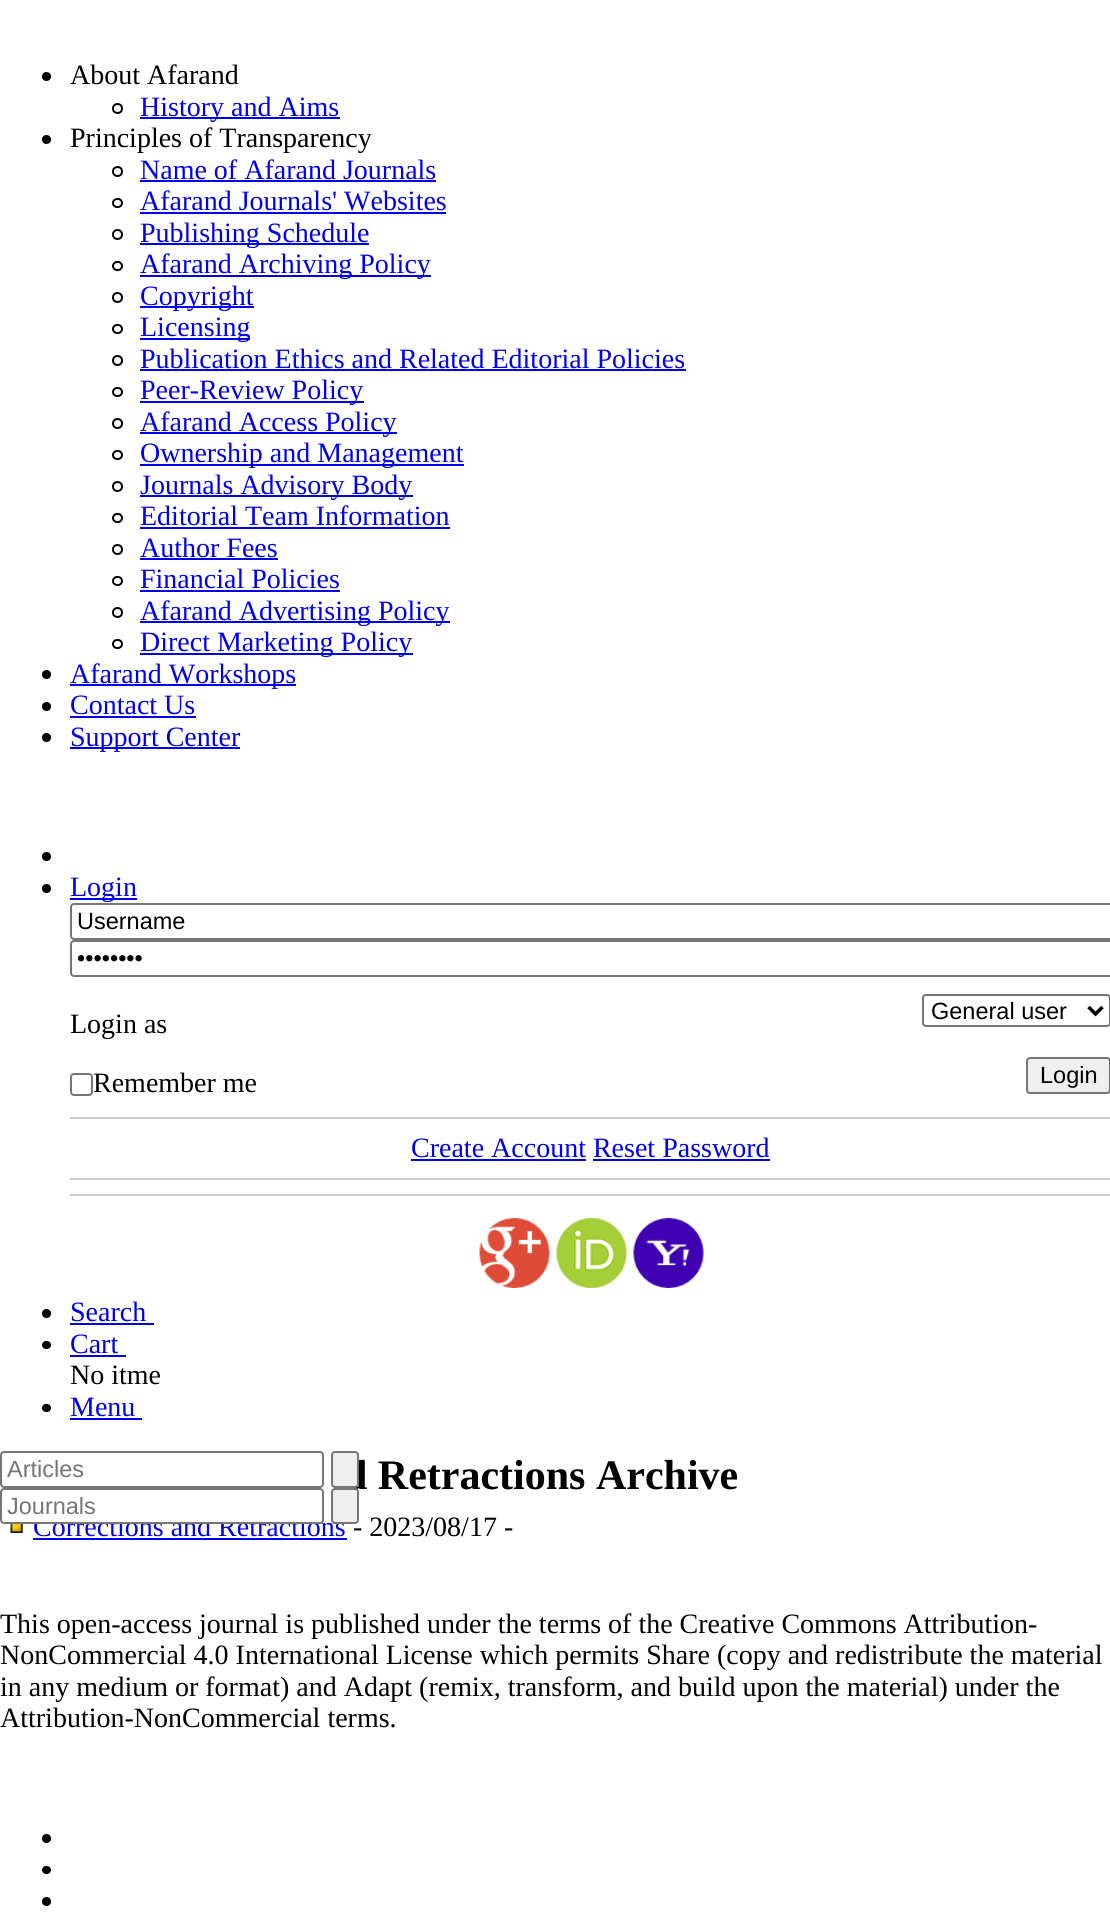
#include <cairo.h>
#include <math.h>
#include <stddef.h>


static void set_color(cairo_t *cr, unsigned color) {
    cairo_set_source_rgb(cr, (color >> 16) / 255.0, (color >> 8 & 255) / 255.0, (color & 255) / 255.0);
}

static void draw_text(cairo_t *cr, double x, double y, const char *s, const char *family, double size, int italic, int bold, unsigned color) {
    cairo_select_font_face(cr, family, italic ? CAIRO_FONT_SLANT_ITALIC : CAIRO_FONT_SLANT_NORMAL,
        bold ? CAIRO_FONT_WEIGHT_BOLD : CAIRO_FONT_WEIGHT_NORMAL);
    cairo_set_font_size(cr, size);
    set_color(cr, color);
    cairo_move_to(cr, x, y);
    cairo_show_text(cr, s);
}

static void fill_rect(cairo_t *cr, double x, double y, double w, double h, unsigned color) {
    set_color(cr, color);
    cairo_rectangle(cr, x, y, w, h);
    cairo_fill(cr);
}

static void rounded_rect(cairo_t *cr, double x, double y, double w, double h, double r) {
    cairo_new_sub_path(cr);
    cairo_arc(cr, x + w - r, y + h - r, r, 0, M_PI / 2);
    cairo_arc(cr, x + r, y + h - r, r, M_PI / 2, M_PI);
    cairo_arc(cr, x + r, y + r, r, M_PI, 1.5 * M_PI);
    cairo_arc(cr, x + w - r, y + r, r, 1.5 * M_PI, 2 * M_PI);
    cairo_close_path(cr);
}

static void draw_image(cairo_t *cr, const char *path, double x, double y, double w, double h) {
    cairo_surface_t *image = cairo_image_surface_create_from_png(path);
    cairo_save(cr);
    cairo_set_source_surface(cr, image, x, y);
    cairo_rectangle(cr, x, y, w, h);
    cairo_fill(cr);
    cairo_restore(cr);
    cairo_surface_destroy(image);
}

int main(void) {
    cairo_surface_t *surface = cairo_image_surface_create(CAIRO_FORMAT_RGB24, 1110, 1921);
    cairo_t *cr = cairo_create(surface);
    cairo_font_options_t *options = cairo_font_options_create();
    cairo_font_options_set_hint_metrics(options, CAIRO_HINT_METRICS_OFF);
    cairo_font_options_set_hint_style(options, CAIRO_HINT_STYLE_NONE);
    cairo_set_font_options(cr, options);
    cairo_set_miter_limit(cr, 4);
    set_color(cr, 0xFFFFFF);
    cairo_paint(cr);
    set_color(cr, 0x000000);
    cairo_arc(cr, 46.5, 76.5, 4.5, 0, 2 * M_PI);
    cairo_fill(cr);
    draw_text(cr, 70, 84, "About Afarand", "Liberation Serif", 28, 0, 0, 0x000000);
    cairo_new_path(cr);
    cairo_arc(cr, 117.5, 108.5, 4.5, 0, 2 * M_PI);
    cairo_stroke(cr);
    fill_rect(cr, 140, 117, 200, 2, 0x0000EE);
    draw_text(cr, 140, 116, "History and Aims", "Liberation Serif", 28, 0, 0, 0x0000EE);
    set_color(cr, 0x000000);
    cairo_new_path(cr);
    cairo_arc(cr, 46.5, 139.5, 4.5, 0, 2 * M_PI);
    cairo_fill(cr);
    draw_text(cr, 70, 147, "Principles of Transparency", "Liberation Serif", 28, 0, 0, 0x000000);
    cairo_new_path(cr);
    cairo_arc(cr, 117.5, 171.5, 4.5, 0, 2 * M_PI);
    cairo_stroke(cr);
    draw_text(cr, 140, 179, "Name of Afarand Journals", "Liberation Serif", 28, 0, 0, 0x0000EE);
    fill_rect(cr, 140, 180, 296, 2, 0x0000EE);
    rounded_rect(cr, 113, 199, 9, 8, 4);
    set_color(cr, 0x000000);
    cairo_stroke(cr);
    draw_text(cr, 140, 210, "Afarand Journals' Websites", "Liberation Serif", 28, 0, 0, 0x0000EE);
    fill_rect(cr, 140, 212, 306, 2, 0x0000EE);
    cairo_new_path(cr);
    cairo_arc(cr, 117.5, 234.5, 4.5, 0, 2 * M_PI);
    set_color(cr, 0x000000);
    cairo_stroke(cr);
    fill_rect(cr, 140, 243, 229, 2, 0x0000EE);
    draw_text(cr, 140, 242, "Publishing Schedule", "Liberation Serif", 28, 0, 0, 0x0000EE);
    rounded_rect(cr, 113, 262, 9, 8, 4);
    set_color(cr, 0x000000);
    cairo_stroke(cr);
    fill_rect(cr, 140, 275, 291, 2, 0x0000EE);
    draw_text(cr, 140, 273, "Afarand Archiving Policy", "Liberation Serif", 28, 0, 0, 0x0000EE);
    cairo_new_path(cr);
    cairo_arc(cr, 117.5, 297.5, 4.5, 0, 2 * M_PI);
    set_color(cr, 0x000000);
    cairo_stroke(cr);
    fill_rect(cr, 140, 306, 114, 2, 0x0000EE);
    draw_text(cr, 140, 305, "Copyright", "Liberation Serif", 28, 0, 0, 0x0000EE);
    rounded_rect(cr, 113, 325, 9, 8, 4);
    set_color(cr, 0x000000);
    cairo_stroke(cr);
    fill_rect(cr, 140, 338, 110, 2, 0x0000EE);
    draw_text(cr, 140, 336, "Licensing", "Liberation Serif", 28, 0, 0, 0x0000EE);
    cairo_new_path(cr);
    cairo_arc(cr, 117.5, 360.5, 4.5, 0, 2 * M_PI);
    set_color(cr, 0x000000);
    cairo_stroke(cr);
    draw_text(cr, 140, 368, "Publication Ethics and Related Editorial Policies", "Liberation Serif", 28, 0, 0, 0x0000EE);
    fill_rect(cr, 140, 369, 546, 2, 0x0000EE);
    rounded_rect(cr, 113, 388, 9, 8, 4);
    set_color(cr, 0x000000);
    cairo_stroke(cr);
    fill_rect(cr, 140, 401, 224, 2, 0x0000EE);
    draw_text(cr, 140, 399, "Peer-Review Policy", "Liberation Serif", 28, 0, 0, 0x0000EE);
    cairo_new_path(cr);
    cairo_arc(cr, 117.5, 423.5, 4.5, 0, 2 * M_PI);
    set_color(cr, 0x000000);
    cairo_stroke(cr);
    fill_rect(cr, 140, 432, 257, 2, 0x0000EE);
    draw_text(cr, 140, 431, "Afarand Access Policy", "Liberation Serif", 28, 0, 0, 0x0000EE);
    rounded_rect(cr, 113, 451, 9, 8, 4);
    set_color(cr, 0x000000);
    cairo_stroke(cr);
    fill_rect(cr, 140, 464, 324, 2, 0x0000EE);
    draw_text(cr, 140, 462, "Ownership and Management", "Liberation Serif", 28, 0, 0, 0x0000EE);
    cairo_new_path(cr);
    cairo_arc(cr, 117.5, 486.5, 4.5, 0, 2 * M_PI);
    set_color(cr, 0x000000);
    cairo_stroke(cr);
    fill_rect(cr, 140, 495, 273, 2, 0x0000EE);
    draw_text(cr, 140, 494, "Journals Advisory Body", "Liberation Serif", 28, 0, 0, 0x0000EE);
    rounded_rect(cr, 113, 514, 9, 8, 4);
    set_color(cr, 0x000000);
    cairo_stroke(cr);
    draw_text(cr, 140, 525, "Editorial Team Information", "Liberation Serif", 28, 0, 0, 0x0000EE);
    fill_rect(cr, 140, 527, 310, 2, 0x0000EE);
    cairo_new_path(cr);
    cairo_arc(cr, 117.5, 549.5, 4.5, 0, 2 * M_PI);
    set_color(cr, 0x000000);
    cairo_stroke(cr);
    draw_text(cr, 140, 557, "Author Fees", "Liberation Serif", 28, 0, 0, 0x0000EE);
    fill_rect(cr, 140, 558, 138, 2, 0x0000EE);
    rounded_rect(cr, 113, 577, 9, 8, 4);
    set_color(cr, 0x000000);
    cairo_stroke(cr);
    draw_text(cr, 140, 588, "Financial Policies", "Liberation Serif", 28, 0, 0, 0x0000EE);
    fill_rect(cr, 140, 590, 200, 2, 0x0000EE);
    cairo_new_path(cr);
    cairo_arc(cr, 117.5, 612.5, 4.5, 0, 2 * M_PI);
    set_color(cr, 0x000000);
    cairo_stroke(cr);
    fill_rect(cr, 140, 621, 310, 2, 0x0000EE);
    draw_text(cr, 140, 620, "Afarand Advertising Policy", "Liberation Serif", 28, 0, 0, 0x0000EE);
    rounded_rect(cr, 113, 640, 9, 8, 4);
    set_color(cr, 0x000000);
    cairo_stroke(cr);
    fill_rect(cr, 140, 653, 273, 2, 0x0000EE);
    draw_text(cr, 140, 651, "Direct Marketing Policy", "Liberation Serif", 28, 0, 0, 0x0000EE);
    set_color(cr, 0x000000);
    cairo_new_path(cr);
    cairo_arc(cr, 46.5, 674.5, 4.5, 0, 2 * M_PI);
    cairo_fill(cr);
    fill_rect(cr, 70, 684, 226, 2, 0x0000EE);
    draw_text(cr, 70, 683, "Afarand Workshops", "Liberation Serif", 28, 0, 0, 0x0000EE);
    set_color(cr, 0x000000);
    cairo_new_path(cr);
    cairo_arc(cr, 46.5, 706.5, 4.5, 0, 2 * M_PI);
    cairo_fill(cr);
    draw_text(cr, 70, 714, "Contact Us", "Liberation Serif", 28, 0, 0, 0x0000EE);
    fill_rect(cr, 70, 716, 126, 2, 0x0000EE);
    set_color(cr, 0x000000);
    cairo_new_path(cr);
    cairo_arc(cr, 46.5, 737.5, 4.5, 0, 2 * M_PI);
    cairo_fill(cr);
    fill_rect(cr, 70, 747, 170, 2, 0x0000EE);
    draw_text(cr, 70, 746, "Support Center", "Liberation Serif", 28, 0, 0, 0x0000EE);
    set_color(cr, 0x000000);
    cairo_new_path(cr);
    cairo_arc(cr, 46.5, 856.5, 4.5, 0, 2 * M_PI);
    cairo_fill(cr);
    cairo_arc(cr, 46.5, 888.5, 4.5, 0, 2 * M_PI);
    cairo_fill(cr);
    fill_rect(cr, 70, 898, 67, 2, 0x0000EE);
    draw_text(cr, 70, 896, "Login", "Liberation Serif", 28, 0, 0, 0x0000EE);
    rounded_rect(cr, 71, 904, 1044, 35, 3);
    set_color(cr, 0x767676);
    cairo_stroke(cr);
    draw_text(cr, 77, 929, "Username", "Liberation Sans", 23.5, 0, 0, 0x000000);
    rounded_rect(cr, 71, 941, 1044, 35, 3);
    set_color(cr, 0x767676);
    cairo_stroke(cr);
    draw_text(cr, 77, 966, "••••••••", "Liberation Sans", 23.5, 0, 0, 0x000000);
    rounded_rect(cr, 923, 995, 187, 31, 3);
    set_color(cr, 0x767676);
    cairo_stroke(cr);
    cairo_new_path(cr);
    cairo_move_to(cr, 1088.5, 1007);
    cairo_line_to(cr, 1095.5, 1014);
    cairo_line_to(cr, 1102.5, 1007);
    set_color(cr, 0x000000);
    cairo_set_line_width(cr, 3.5);
    cairo_stroke(cr);
    draw_text(cr, 931, 1019, "General user", "Liberation Sans", 23.5, 0, 0, 0x000000);
    draw_text(cr, 70, 1033, "Login as", "Liberation Serif", 28, 0, 0, 0x000000);
    rounded_rect(cr, 71, 1074, 21, 21, 3);
    set_color(cr, 0x767676);
    cairo_set_line_width(cr, 2);
    cairo_stroke(cr);
    draw_text(cr, 93, 1092, "Remember me", "Liberation Serif", 28, 0, 0, 0x000000);
    set_color(cr, 0xEFEFEF);
    rounded_rect(cr, 1027, 1058, 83, 35, 3);
    cairo_fill_preserve(cr);
    set_color(cr, 0x767676);
    cairo_stroke(cr);
    draw_text(cr, 1040, 1083, "Login", "Liberation Sans", 23.5, 0, 0, 0x000000);
    fill_rect(cr, 70, 1117, 1040, 2, 0xCCCCCC);
    draw_text(cr, 411, 1157, "Create Account Reset Password", "Liberation Serif", 28, 0, 0, 0x0000EE);
    fill_rect(cr, 411, 1159, 175, 2, 0x0000EE);
    fill_rect(cr, 593, 1159, 177, 2, 0x0000EE);
    fill_rect(cr, 70, 1178, 1040, 2, 0xCCCCCC);
    fill_rect(cr, 70, 1194, 1040, 2, 0xCCCCCC);
    draw_image(cr, "assets/img1.png", 479, 1218, 71, 70);
    draw_image(cr, "assets/img2.png", 556, 1218, 71, 70);
    draw_image(cr, "assets/img3.png", 633, 1218, 71, 70);
    set_color(cr, 0x000000);
    cairo_arc(cr, 46.5, 1313.5, 4.5, 0, 2 * M_PI);
    cairo_fill(cr);
    draw_text(cr, 70, 1321, "Search", "Liberation Serif", 28, 0, 0, 0x0000EE);
    fill_rect(cr, 70, 1323, 84, 2, 0x0000EE);
    set_color(cr, 0x000000);
    rounded_rect(cr, 42, 1341, 9, 8, 4);
    cairo_fill(cr);
    draw_text(cr, 70, 1353, "Cart", "Liberation Serif", 28, 0, 0, 0x0000EE);
    fill_rect(cr, 70, 1355, 56, 2, 0x0000EE);
    draw_text(cr, 70, 1384, "No itme", "Liberation Serif", 28, 0, 0, 0x000000);
    rounded_rect(cr, 42, 1404, 9, 8, 4);
    cairo_fill(cr);
    draw_text(cr, 70, 1416, "Menu", "Liberation Serif", 28, 0, 0, 0x0000EE);
    fill_rect(cr, 70, 1418, 72, 2, 0x0000EE);
    draw_text(cr, 344, 1489, "d Retractions Archive", "Liberation Serif", 42, 0, 1, 0x000000);
    draw_image(cr, "assets/img4.png", 10, 1524, 13, 9);
    draw_text(cr, 33, 1536, "Corrections and Retractions", "Liberation Serif", 28, 0, 0, 0x0000EE);
    fill_rect(cr, 33, 1538, 314, 2, 0x0000EE);
    draw_text(cr, 353, 1536, "- 2023/08/17 -", "Liberation Serif", 28, 0, 0, 0x000000);
    rounded_rect(cr, 1, 1452, 322, 35, 3);
    set_color(cr, 0x767676);
    cairo_stroke(cr);
    draw_text(cr, 7, 1477, "Articles", "Liberation Sans", 23.5, 0, 0, 0x757575);
    set_color(cr, 0xEFEFEF);
    rounded_rect(cr, 332, 1452, 26, 35, 3);
    cairo_fill_preserve(cr);
    set_color(cr, 0x767676);
    cairo_stroke(cr);
    set_color(cr, 0xFFFFFF);
    rounded_rect(cr, 1, 1489, 322, 34, 3);
    cairo_fill_preserve(cr);
    set_color(cr, 0x767676);
    cairo_stroke(cr);
    draw_text(cr, 7, 1514, "Journals", "Liberation Sans", 23.5, 0, 0, 0x757575);
    set_color(cr, 0xEFEFEF);
    rounded_rect(cr, 332, 1489, 26, 34, 3);
    cairo_fill_preserve(cr);
    set_color(cr, 0x767676);
    cairo_stroke(cr);
    draw_text(cr, 0, 1633, "This open-access journal is published under the terms of the Creative Commons Attribution-", "Liberation Serif", 28, 0, 0, 0x000000);
    draw_text(cr, 0, 1664, "NonCommercial 4.0 International License which permits Share (copy and redistribute the material", "Liberation Serif", 28, 0, 0, 0x000000);
    draw_text(cr, 0, 1696, "in any medium or format) and Adapt (remix, transform, and build upon the material) under the", "Liberation Serif", 28, 0, 0, 0x000000);
    draw_text(cr, 0, 1727, "Attribution-NonCommercial terms.", "Liberation Serif", 28, 0, 0, 0x000000);
    cairo_new_path(cr);
    cairo_arc(cr, 46.5, 1838.5, 4.5, 0, 2 * M_PI);
    cairo_fill(cr);
    rounded_rect(cr, 42, 1866, 9, 8, 4);
    cairo_fill(cr);
    cairo_arc(cr, 46.5, 1901.5, 4.5, 0, 2 * M_PI);
    cairo_fill(cr);
    cairo_surface_write_to_png(surface, "output.png");
    cairo_font_options_destroy(options);
    cairo_destroy(cr);
    cairo_surface_destroy(surface);
    return 0;
}
